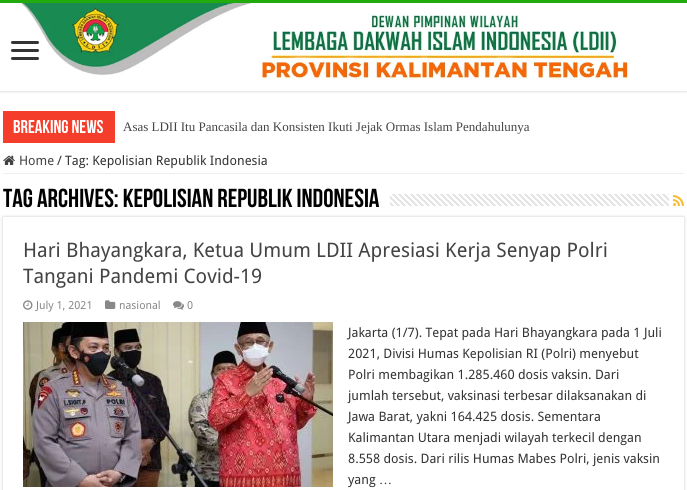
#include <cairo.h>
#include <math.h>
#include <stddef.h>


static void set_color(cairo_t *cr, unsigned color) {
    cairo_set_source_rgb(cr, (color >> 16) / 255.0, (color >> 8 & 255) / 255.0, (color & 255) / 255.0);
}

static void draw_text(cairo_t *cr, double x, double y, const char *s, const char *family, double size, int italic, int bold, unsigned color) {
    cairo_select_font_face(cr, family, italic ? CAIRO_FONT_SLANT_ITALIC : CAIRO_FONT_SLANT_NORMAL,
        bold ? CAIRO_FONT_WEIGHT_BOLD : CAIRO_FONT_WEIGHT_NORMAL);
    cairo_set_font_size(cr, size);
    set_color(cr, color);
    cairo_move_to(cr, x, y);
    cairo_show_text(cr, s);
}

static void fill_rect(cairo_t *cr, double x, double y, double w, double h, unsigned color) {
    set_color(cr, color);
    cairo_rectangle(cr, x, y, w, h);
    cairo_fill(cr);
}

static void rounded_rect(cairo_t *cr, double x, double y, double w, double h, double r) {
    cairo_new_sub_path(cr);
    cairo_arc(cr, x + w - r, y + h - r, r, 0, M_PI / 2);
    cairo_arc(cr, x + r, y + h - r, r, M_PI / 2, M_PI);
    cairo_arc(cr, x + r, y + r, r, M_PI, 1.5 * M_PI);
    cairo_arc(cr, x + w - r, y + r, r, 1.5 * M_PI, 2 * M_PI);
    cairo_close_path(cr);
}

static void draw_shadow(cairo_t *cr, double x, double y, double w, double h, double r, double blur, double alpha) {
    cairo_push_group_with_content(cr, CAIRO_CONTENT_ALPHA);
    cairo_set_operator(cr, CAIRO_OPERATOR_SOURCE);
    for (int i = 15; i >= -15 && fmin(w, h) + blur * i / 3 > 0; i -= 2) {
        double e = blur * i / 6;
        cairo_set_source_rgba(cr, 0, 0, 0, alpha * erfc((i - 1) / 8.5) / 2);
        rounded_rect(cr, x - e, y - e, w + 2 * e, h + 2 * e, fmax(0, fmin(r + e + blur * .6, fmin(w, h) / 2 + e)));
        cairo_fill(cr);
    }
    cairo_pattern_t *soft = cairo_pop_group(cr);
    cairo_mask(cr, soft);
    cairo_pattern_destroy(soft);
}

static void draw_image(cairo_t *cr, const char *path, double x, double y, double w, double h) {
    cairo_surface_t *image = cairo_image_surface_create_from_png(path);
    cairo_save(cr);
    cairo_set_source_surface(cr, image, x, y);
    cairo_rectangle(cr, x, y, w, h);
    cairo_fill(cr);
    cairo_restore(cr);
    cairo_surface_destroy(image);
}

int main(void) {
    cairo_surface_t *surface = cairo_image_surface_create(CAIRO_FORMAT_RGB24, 687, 490);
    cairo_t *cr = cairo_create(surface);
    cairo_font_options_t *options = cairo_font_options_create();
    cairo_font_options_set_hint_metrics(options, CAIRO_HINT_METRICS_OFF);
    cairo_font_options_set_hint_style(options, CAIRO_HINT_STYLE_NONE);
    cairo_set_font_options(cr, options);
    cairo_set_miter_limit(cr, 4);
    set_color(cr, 0xFFFFFF);
    cairo_paint(cr);
    cairo_save(cr);
    cairo_rectangle(cr, 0, 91, 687, 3);
    cairo_clip(cr);
    set_color(cr, 0xCACACA);
    draw_shadow(cr, 0, 0, 687, 91, 0, 1.5, 1);
    cairo_restore(cr);
    fill_rect(cr, 0, 0, 687, 3, 0x22AB0D);
    draw_image(cr, "assets/img1.png", 20, 3, 609, 76);
    set_color(cr, 0x333333);
    rounded_rect(cr, 11, 41, 28, 3, 1.5);
    cairo_fill(cr);
    rounded_rect(cr, 11, 49, 28, 3, 1.5);
    cairo_fill(cr);
    rounded_rect(cr, 11, 57, 28, 3, 1.5);
    cairo_fill(cr);
    fill_rect(cr, 3, 111, 112, 32, 0xF43D2A);
    draw_text(cr, 13, 133, "Breaking News", "Bebas Neue", 18.5, 0, 1, 0xFFFFFF);
    draw_text(cr, 123, 131, "Asas LDII Itu Pancasila dan Konsisten Ikuti Jejak Ormas Islam Pendahulunya", "Liberation Serif", 13, 0, 0, 0x444444);
    fill_rect(cr, 3, 173, 681, 1, 0xEEEEEE);
    draw_image(cr, "assets/img2.png", 3, 155, 12, 10);
    draw_text(cr, 19, 165, "Home", "Droid Sans", 13, 0, 0, 0x444444);
    draw_text(cr, 57, 165, "/", "Droid Sans", 13, 0, 0, 0x333333);
    draw_text(cr, 65, 165, "Tag: Kepolisian Republik Indonesia", "Droid Sans", 13, 0, 0, 0x333333);
    draw_text(cr, 3, 207, "Tag Archives: Kepolisian Republik Indonesia", "Bebas Neue", 26, 0, 1, 0x000000);
    draw_image(cr, "assets/img3.png", 390, 194, 279, 12);
    draw_image(cr, "assets/img4.png", 673, 195, 11, 11);
    cairo_save(cr);
    cairo_set_fill_rule(cr, CAIRO_FILL_RULE_EVEN_ODD);
    cairo_new_path(cr);
    cairo_move_to(cr, 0, 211);
    cairo_line_to(cr, 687, 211);
    cairo_line_to(cr, 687, 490);
    cairo_line_to(cr, 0, 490);
    cairo_close_path(cr);
    cairo_move_to(cr, 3, 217);
    cairo_line_to(cr, 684, 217);
    cairo_line_to(cr, 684, 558);
    cairo_line_to(cr, 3, 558);
    cairo_close_path(cr);
    cairo_clip(cr);
    set_color(cr, 0xCACACA);
    draw_shadow(cr, 3, 217, 681, 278, 0, 1.5, 1);
    cairo_restore(cr);
    draw_text(cr, 23, 257, "Hari Bhayangkara, Ketua Umum LDII Apresiasi Kerja Senyap Polri", "Droid Sans", 20, 0, 0, 0x444444);
    draw_text(cr, 23, 283, "Tangani Pandemi Covid-19", "Droid Sans", 20, 0, 0, 0x444444);
    draw_image(cr, "assets/img5.png", 23, 300, 10, 10);
    draw_text(cr, 36, 309, "July 1, 2021", "Droid Sans", 11, 0, 0, 0x888888);
    draw_image(cr, "assets/img6.png", 105, 300, 11, 9);
    draw_text(cr, 119, 309, "nasional", "Droid Sans", 11, 0, 0, 0x888888);
    draw_image(cr, "assets/img7.png", 173, 301, 11, 9);
    draw_text(cr, 187, 309, "0", "Droid Sans", 11, 0, 0, 0x888888);
    draw_image(cr, "assets/img8.png", 23, 322, 310, 165);
    draw_text(cr, 348, 337, "Jakarta (1/7). Tepat pada Hari Bhayangkara pada 1 Juli", "Droid Sans", 13, 0, 0, 0x333333);
    draw_text(cr, 348, 358, "2021, Divisi Humas Kepolisian RI (Polri) menyebut", "Droid Sans", 13, 0, 0, 0x333333);
    draw_text(cr, 348, 379, "Polri membagikan 1.285.460 dosis vaksin. Dari", "Droid Sans", 13, 0, 0, 0x333333);
    draw_text(cr, 348, 400, "jumlah tersebut, vaksinasi terbesar dilaksanakan di", "Droid Sans", 13, 0, 0, 0x333333);
    draw_text(cr, 348, 421, "Jawa Barat, yakni 164.425 dosis. Sementara", "Droid Sans", 13, 0, 0, 0x333333);
    draw_text(cr, 348, 442, "Kalimantan Utara menjadi wilayah terkecil dengan", "Droid Sans", 13, 0, 0, 0x333333);
    draw_text(cr, 348, 463, "8.558 dosis. Dari rilis Humas Mabes Polri, jenis vaksin", "Droid Sans", 13, 0, 0, 0x333333);
    draw_text(cr, 348, 484, "yang", "Droid Sans", 13, 0, 0, 0x333333);
    draw_text(cr, 379, 484, "…", "Liberation Serif", 13, 0, 0, 0x333333);
    cairo_surface_write_to_png(surface, "output.png");
    cairo_font_options_destroy(options);
    cairo_destroy(cr);
    cairo_surface_destroy(surface);
    return 0;
}
